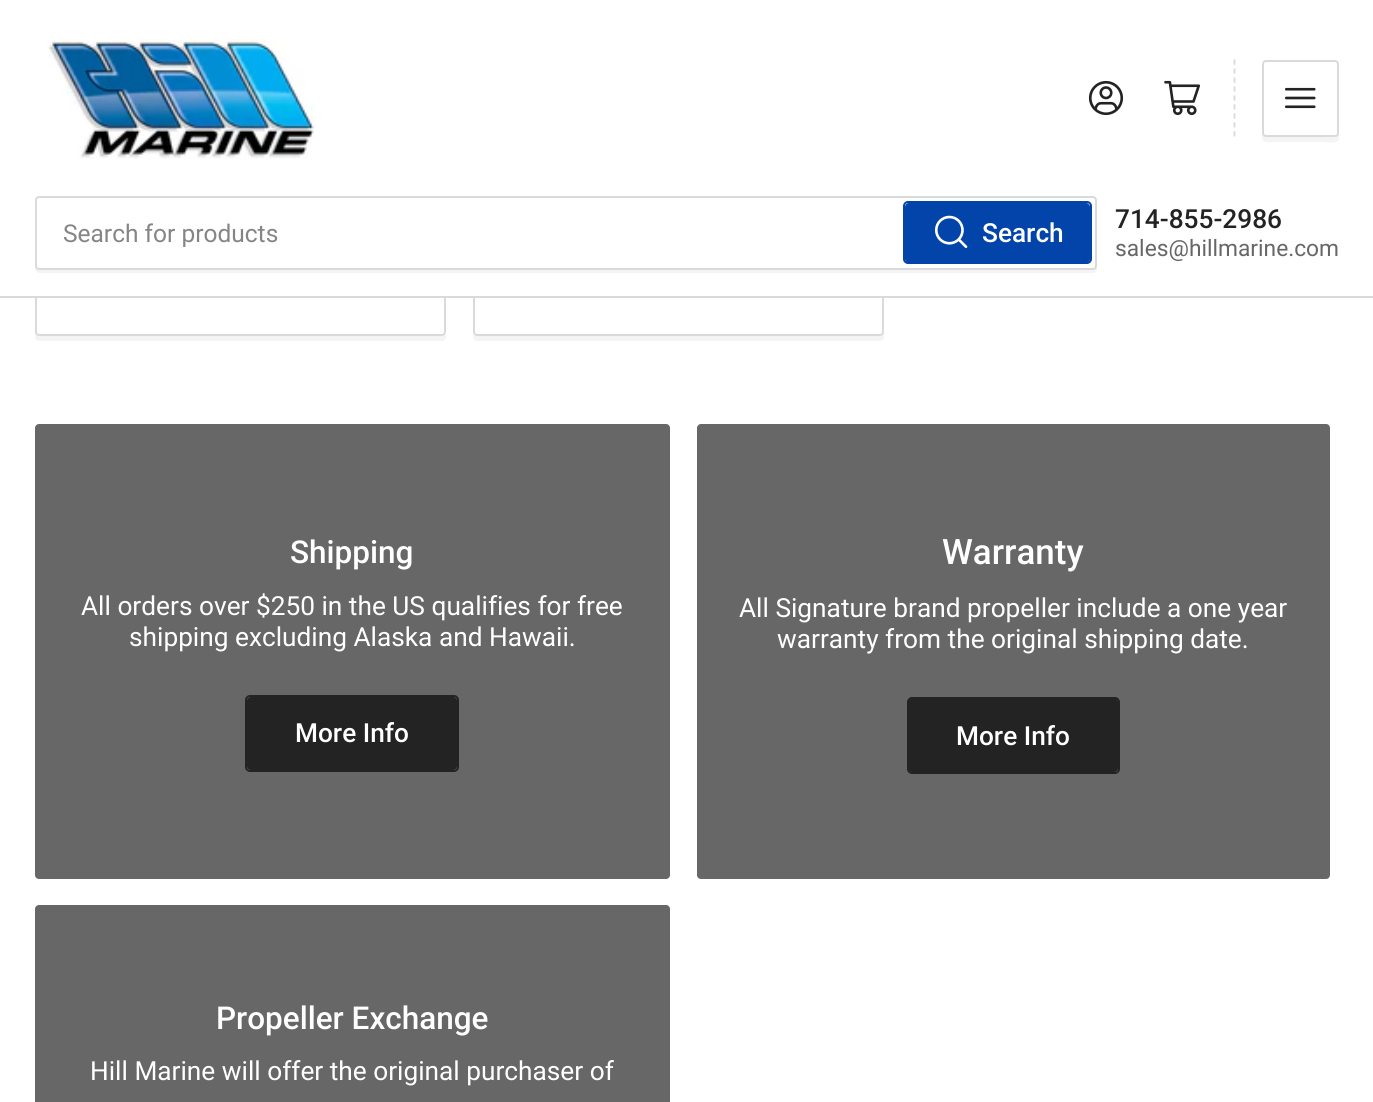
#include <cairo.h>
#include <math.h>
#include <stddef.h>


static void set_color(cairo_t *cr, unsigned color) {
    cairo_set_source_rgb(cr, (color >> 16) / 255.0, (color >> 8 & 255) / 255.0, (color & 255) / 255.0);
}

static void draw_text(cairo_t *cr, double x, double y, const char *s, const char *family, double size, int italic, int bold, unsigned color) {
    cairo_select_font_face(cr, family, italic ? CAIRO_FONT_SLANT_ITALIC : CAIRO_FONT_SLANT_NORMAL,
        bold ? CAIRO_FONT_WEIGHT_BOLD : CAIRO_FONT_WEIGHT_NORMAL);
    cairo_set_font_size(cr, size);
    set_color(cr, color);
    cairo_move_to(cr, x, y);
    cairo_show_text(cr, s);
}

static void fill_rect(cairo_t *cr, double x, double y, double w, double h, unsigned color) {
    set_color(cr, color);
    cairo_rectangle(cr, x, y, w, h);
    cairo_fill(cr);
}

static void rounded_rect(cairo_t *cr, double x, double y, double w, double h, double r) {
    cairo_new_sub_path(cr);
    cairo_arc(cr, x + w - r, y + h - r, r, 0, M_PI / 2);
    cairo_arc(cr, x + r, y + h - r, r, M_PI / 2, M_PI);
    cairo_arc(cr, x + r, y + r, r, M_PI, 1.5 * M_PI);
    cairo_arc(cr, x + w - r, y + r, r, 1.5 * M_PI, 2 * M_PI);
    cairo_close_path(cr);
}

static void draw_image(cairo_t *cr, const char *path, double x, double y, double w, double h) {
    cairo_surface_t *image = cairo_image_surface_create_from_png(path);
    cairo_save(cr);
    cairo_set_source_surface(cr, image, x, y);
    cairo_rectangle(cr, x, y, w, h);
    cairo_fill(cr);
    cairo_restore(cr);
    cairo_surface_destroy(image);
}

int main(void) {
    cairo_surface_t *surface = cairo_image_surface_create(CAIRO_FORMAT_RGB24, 1373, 1102);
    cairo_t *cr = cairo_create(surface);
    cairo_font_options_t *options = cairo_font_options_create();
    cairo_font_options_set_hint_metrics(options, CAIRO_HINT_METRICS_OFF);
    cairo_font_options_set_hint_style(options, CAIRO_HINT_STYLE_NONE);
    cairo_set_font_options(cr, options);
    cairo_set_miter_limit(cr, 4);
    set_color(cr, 0xFFFFFF);
    cairo_paint(cr);
    set_color(cr, 0xF4F4F4);
    cairo_new_path(cr);
    cairo_move_to(cr, 35, 332);
    cairo_line_to(cr, 35, 337);
    cairo_curve_to(cr, 35, 339, 37, 341, 39, 341);
    cairo_line_to(cr, 442, 341);
    cairo_curve_to(cr, 444, 341, 446, 339, 446, 337);
    cairo_line_to(cr, 446, 334);
    cairo_curve_to(cr, 445, 335, 444, 336, 443, 336);
    cairo_line_to(cr, 38, 336);
    cairo_curve_to(cr, 37, 336, 35, 334, 35, 332);
    cairo_close_path(cr);
    cairo_fill(cr);
    set_color(cr, 0xFFFFFF);
    rounded_rect(cr, 36, -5, 409, 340, 3);
    cairo_fill_preserve(cr);
    set_color(cr, 0xDADADA);
    cairo_stroke(cr);
    set_color(cr, 0xF4F4F4);
    cairo_new_path(cr);
    cairo_move_to(cr, 473, 334);
    cairo_line_to(cr, 473, 337);
    cairo_curve_to(cr, 473, 339, 475, 341, 477, 341);
    cairo_line_to(cr, 880, 341);
    cairo_curve_to(cr, 882, 341, 884, 339, 884, 337);
    cairo_line_to(cr, 884, -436);
    cairo_line_to(cr, 884, 332);
    cairo_curve_to(cr, 884, 334, 882, 336, 880, 336);
    cairo_line_to(cr, 476, 336);
    cairo_curve_to(cr, 475, 336, 474, 335, 473, 334);
    cairo_close_path(cr);
    cairo_fill(cr);
    set_color(cr, 0xFFFFFF);
    rounded_rect(cr, 474, -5, 409, 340, 3);
    cairo_fill_preserve(cr);
    set_color(cr, 0xDADADA);
    cairo_stroke(cr);
    fill_rect(cr, 35, 0, 849, 296, 0xFFFFFF);
    fill_rect(cr, 0, 296, 1373, 2, 0xDADADA);
    draw_image(cr, "assets/img1.png", 48, 39, 267, 120);
    draw_image(cr, "assets/img2.png", 1088, 80, 36, 36);
    draw_image(cr, "assets/img3.png", 1164, 80, 36, 36);
    cairo_new_path(cr);
    cairo_move_to(cr, 1234.5, 59.5);
    cairo_line_to(cr, 1234.5, 136.5);
    cairo_set_line_width(cr, 1.8);
    cairo_set_dash(cr, (double[]){5.25, 3.71}, 2, 0);
    cairo_stroke(cr);
    set_color(cr, 0xF4F4F4);
    cairo_new_path(cr);
    cairo_move_to(cr, 1262, 134);
    cairo_curve_to(cr, 1262, 145, 1266, 142, 1278, 142);
    cairo_line_to(cr, 1324, 142);
    cairo_curve_to(cr, 1325, 142, 1339, 145, 1339, 138);
    cairo_line_to(cr, 1339, 68);
    cairo_line_to(cr, 1339, 133);
    cairo_curve_to(cr, 1339, 135, 1337, 136, 1335, 136);
    cairo_line_to(cr, 1265, 136);
    cairo_curve_to(cr, 1264, 136, 1263, 136, 1262, 134);
    cairo_close_path(cr);
    cairo_fill(cr);
    rounded_rect(cr, 1263, 61, 75, 75, 3);
    set_color(cr, 0xDADADA);
    cairo_set_line_width(cr, 2);
    cairo_set_dash(cr, NULL, 0, 0);
    cairo_stroke(cr);
    draw_image(cr, "assets/img4.png", 1285, 87, 31, 22);
    set_color(cr, 0xF4F4F4);
    cairo_new_path(cr);
    cairo_move_to(cr, 35, 266);
    cairo_line_to(cr, 35, 269);
    cairo_curve_to(cr, 35, 271, 37, 273, 39, 273);
    cairo_line_to(cr, 1093, 273);
    cairo_curve_to(cr, 1095, 273, 1097, 271, 1097, 269);
    cairo_line_to(cr, 1097, 267);
    cairo_curve_to(cr, 1096, 269, 1095, 270, 1094, 270);
    cairo_line_to(cr, 38, 270);
    cairo_curve_to(cr, 37, 270, 35, 268, 35, 266);
    cairo_close_path(cr);
    cairo_fill(cr);
    set_color(cr, 0xFFFFFF);
    rounded_rect(cr, 36, 197, 1060, 72, 3);
    cairo_fill_preserve(cr);
    set_color(cr, 0xDADADA);
    cairo_stroke(cr);
    draw_text(cr, 63, 242, "Search for products", "Roboto", 24.5, 0, 0, 0x858585);
    rounded_rect(cr, 904, 202, 187, 61, 4);
    set_color(cr, 0x0244A9);
    cairo_stroke(cr);
    rounded_rect(cr, 905, 203, 185, 60, 4);
    cairo_fill(cr);
    draw_image(cr, "assets/img5.png", 934, 215, 34, 33);
    draw_text(cr, 982, 242, "Search", "Roboto Medium", 26.25, 0, 0, 0xFFFFFF);
    draw_text(cr, 1115, 228, "714-855-2986", "Roboto Medium", 26.25, 0, 0, 0x232323);
    draw_text(cr, 1115, 256, "sales@hillmarine.com", "Roboto", 22.75, 0, 0, 0x676767);
    rounded_rect(cr, 35, 424, 635, 455, 4);
    cairo_fill(cr);
    draw_text(cr, 290, 563, "Shipping", "Roboto Medium", 31.5, 0, 0, 0xFFFFFF);
    draw_text(cr, 81, 615, "All orders over $250 in the US qualifies for free", "Roboto", 26.25, 0, 0, 0xFFFFFF);
    draw_text(cr, 129, 646, "shipping excluding Alaska and Hawaii.", "Roboto", 26.25, 0, 0, 0xFFFFFF);
    rounded_rect(cr, 246, 696, 212, 75, 4);
    set_color(cr, 0x232323);
    cairo_stroke(cr);
    rounded_rect(cr, 247, 697, 210, 73, 4);
    cairo_fill(cr);
    draw_text(cr, 295, 742, "More Info", "Roboto Medium", 26.25, 0, 0, 0xFFFFFF);
    set_color(cr, 0x676767);
    rounded_rect(cr, 697, 424, 633, 455, 4);
    cairo_fill(cr);
    draw_text(cr, 942, 564, "Warranty", "Roboto Medium", 35, 0, 0, 0xFFFFFF);
    draw_text(cr, 739, 617, "All Signature brand propeller include a one year", "Roboto", 26.25, 0, 0, 0xFFFFFF);
    draw_text(cr, 777, 648, "warranty from the original shipping date.", "Roboto", 26.25, 0, 0, 0xFFFFFF);
    rounded_rect(cr, 908, 698, 211, 75, 4);
    set_color(cr, 0x232323);
    cairo_stroke(cr);
    rounded_rect(cr, 908, 698, 210, 74, 4);
    cairo_fill(cr);
    draw_text(cr, 956, 745, "More Info", "Roboto Medium", 26.25, 0, 0, 0xFFFFFF);
    set_color(cr, 0x676767);
    rounded_rect(cr, 35, 905, 635, 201, 4);
    cairo_fill(cr);
    draw_text(cr, 216, 1029, "Propeller Exchange", "Roboto Medium", 31.5, 0, 0, 0xFFFFFF);
    draw_text(cr, 90, 1080, "Hill Marine will offer the original purchaser of", "Roboto", 26.25, 0, 0, 0xFFFFFF);
    cairo_surface_write_to_png(surface, "output.png");
    cairo_font_options_destroy(options);
    cairo_destroy(cr);
    cairo_surface_destroy(surface);
    return 0;
}
